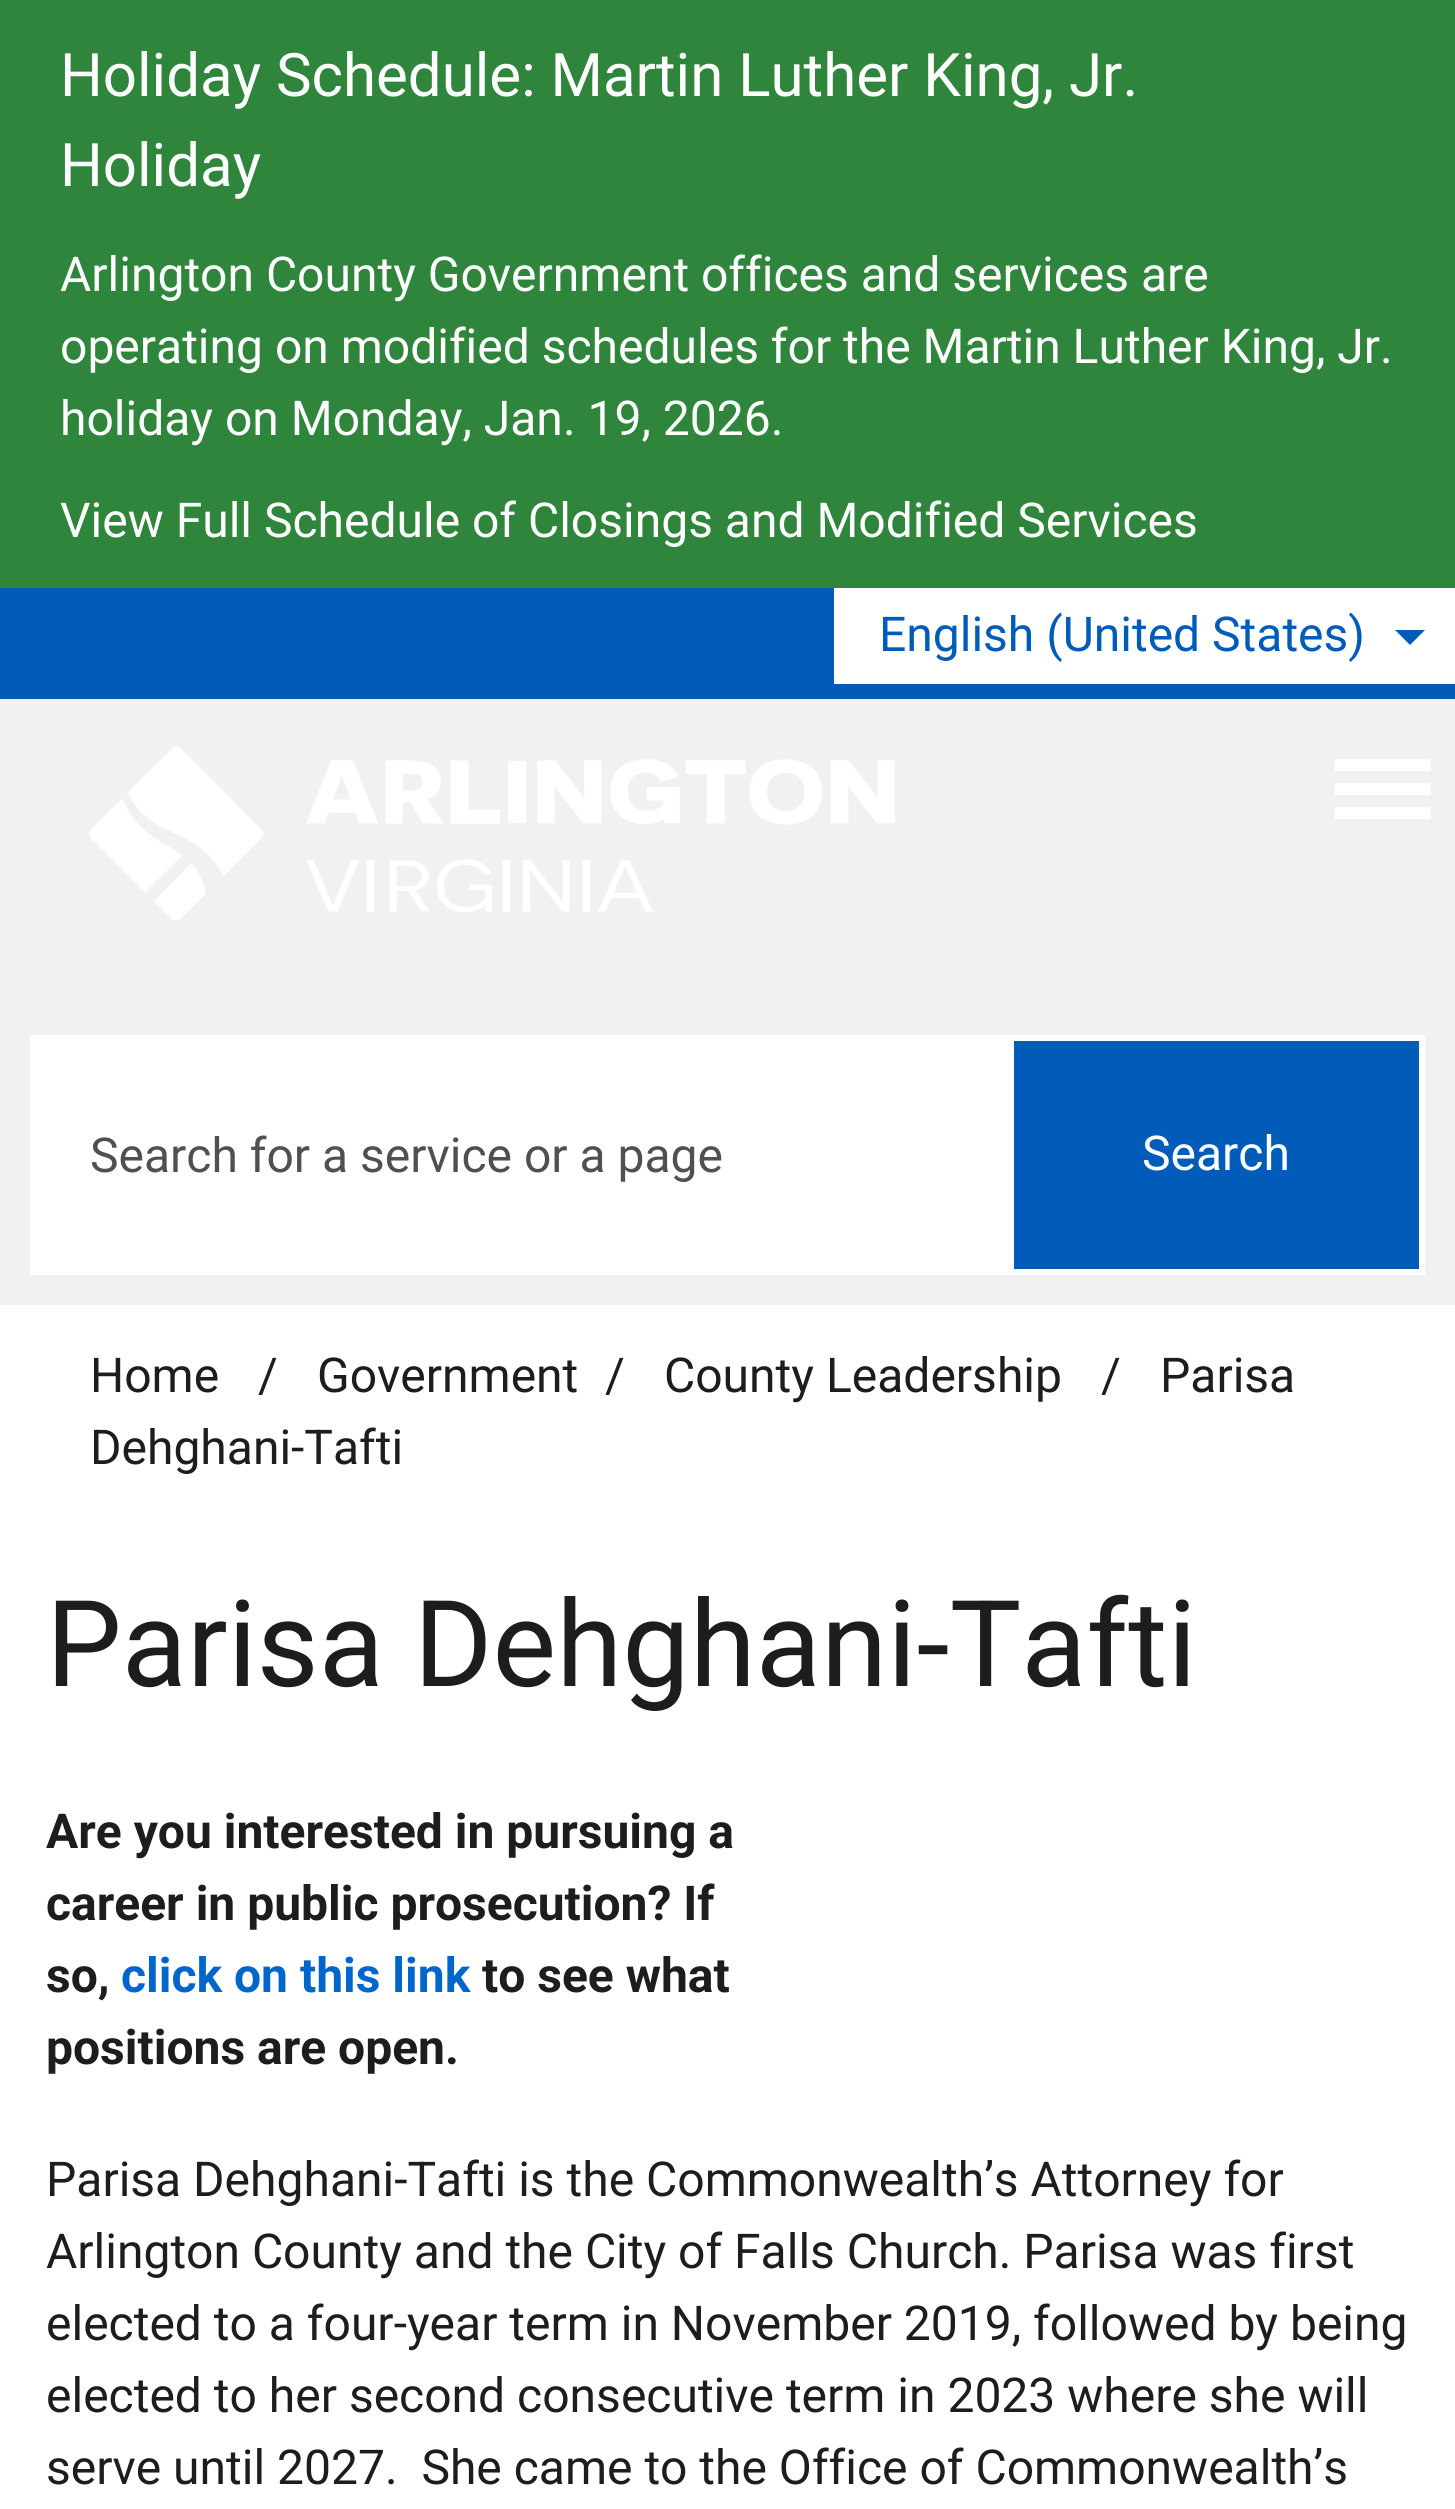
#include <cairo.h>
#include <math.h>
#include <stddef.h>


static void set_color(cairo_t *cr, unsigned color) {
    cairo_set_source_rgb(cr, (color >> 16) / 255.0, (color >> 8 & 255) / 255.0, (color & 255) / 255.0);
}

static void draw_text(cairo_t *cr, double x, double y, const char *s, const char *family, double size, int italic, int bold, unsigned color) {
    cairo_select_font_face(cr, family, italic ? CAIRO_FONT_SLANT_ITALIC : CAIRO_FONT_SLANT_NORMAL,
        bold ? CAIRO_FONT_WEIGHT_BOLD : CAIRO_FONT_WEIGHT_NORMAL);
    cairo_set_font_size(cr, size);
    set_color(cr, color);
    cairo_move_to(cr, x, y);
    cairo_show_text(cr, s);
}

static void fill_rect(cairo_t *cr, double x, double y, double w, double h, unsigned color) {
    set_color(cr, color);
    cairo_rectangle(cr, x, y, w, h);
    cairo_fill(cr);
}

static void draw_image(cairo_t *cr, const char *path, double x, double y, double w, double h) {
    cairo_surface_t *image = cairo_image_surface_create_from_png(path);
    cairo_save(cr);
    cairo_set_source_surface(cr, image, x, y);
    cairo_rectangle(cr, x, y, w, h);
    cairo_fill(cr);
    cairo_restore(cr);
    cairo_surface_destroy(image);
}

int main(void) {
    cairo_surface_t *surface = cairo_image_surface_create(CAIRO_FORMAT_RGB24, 1455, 2509);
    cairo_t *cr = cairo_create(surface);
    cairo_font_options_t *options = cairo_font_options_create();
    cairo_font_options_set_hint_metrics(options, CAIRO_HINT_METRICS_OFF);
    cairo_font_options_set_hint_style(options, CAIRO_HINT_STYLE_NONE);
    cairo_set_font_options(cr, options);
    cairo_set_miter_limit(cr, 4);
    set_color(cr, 0x2E853B);
    cairo_paint(cr);
    draw_text(cr, 60, 96, "Holiday Schedule: Martin Luther King, Jr.", "Roboto", 60, 0, 0, 0xFFFFFF);
    draw_text(cr, 60, 186, "Holiday", "Roboto", 60, 0, 0, 0xFFFFFF);
    draw_text(cr, 60, 291, "Arlington County Government offices and services are", "Roboto", 48, 0, 0, 0xFFFFFF);
    draw_text(cr, 60, 363, "operating on modified schedules for the Martin Luther King, Jr.", "Roboto", 48, 0, 0, 0xFFFFFF);
    draw_text(cr, 60, 435, "holiday on Monday, Jan. 19, 2026.", "Roboto", 48, 0, 0, 0xFFFFFF);
    draw_text(cr, 60, 537, "View Full Schedule of Closings and Modified Services", "Roboto", 48, 0, 0, 0xFFFFFF);
    fill_rect(cr, 0, 699, 1455, 606, 0xF1F1F1);
    fill_rect(cr, 0, 588, 1455, 111, 0x005CB8);
    fill_rect(cr, 834, 588, 621, 96, 0xFFFFFF);
    draw_text(cr, 879, 651, "English (United States)", "Roboto", 48, 0, 0, 0x005CB8);
    cairo_new_path(cr);
    cairo_move_to(cr, 1395, 630);
    cairo_line_to(cr, 1425, 630);
    cairo_line_to(cr, 1410, 645);
    cairo_close_path(cr);
    cairo_fill(cr);
    fill_rect(cr, 1335, 783, 96, 12, 0xFFFFFF);
    fill_rect(cr, 1335, 759, 96, 12, 0xFFFFFF);
    fill_rect(cr, 1335, 807, 96, 12, 0xFFFFFF);
    draw_image(cr, "assets/img1.png", 89, 747, 806, 174);
    fill_rect(cr, 30, 1035, 978, 240, 0xFFFFFF);
    draw_text(cr, 90, 1172, "Search for a service or a page", "Roboto", 48, 0, 0, 0x505050);
    set_color(cr, 0x005CB8);
    cairo_rectangle(cr, 1011, 1038, 411, 234);
    cairo_fill_preserve(cr);
    set_color(cr, 0xFFFFFF);
    cairo_set_line_width(cr, 6);
    cairo_stroke(cr);
    draw_text(cr, 1142, 1170, "Search", "Roboto", 48, 0, 0, 0xFFFFFF);
    fill_rect(cr, 0, 1305, 1455, 1204, 0xFFFFFF);
    draw_text(cr, 90, 1392, "Home", "Roboto", 48, 0, 0, 0x1D1D1D);
    draw_text(cr, 258, 1392, "/", "Roboto", 48, 0, 0, 0x1D1D1D);
    draw_text(cr, 317, 1392, "Government", "Roboto", 48, 0, 0, 0x1D1D1D);
    draw_text(cr, 605, 1392, "/", "Roboto", 48, 0, 0, 0x1D1D1D);
    draw_text(cr, 664, 1392, "County Leadership", "Roboto", 48, 0, 0, 0x1D1D1D);
    draw_text(cr, 1101, 1392, "/", "Roboto", 48, 0, 0, 0x1D1D1D);
    draw_text(cr, 1160, 1392, "Parisa", "Roboto", 48, 0, 0, 0x1D1D1D);
    draw_text(cr, 90, 1464, "Dehghani-Tafti", "Roboto", 48, 0, 0, 0x1D1D1D);
    draw_text(cr, 46, 1686, "Parisa Dehghani-Tafti", "Roboto", 120, 0, 0, 0x1D1D1D);
    draw_text(cr, 46, 1848, "Are you interested in pursuing a", "Roboto", 48, 0, 1, 0x1D1D1D);
    draw_text(cr, 46, 1920, "career in public prosecution? If", "Roboto", 48, 0, 1, 0x1D1D1D);
    draw_text(cr, 46, 1992, "so,", "Roboto", 48, 0, 1, 0x1D1D1D);
    draw_text(cr, 121, 1992, "click on this link", "Roboto", 48, 0, 1, 0x0066CC);
    draw_text(cr, 482, 1992, "to see what", "Roboto", 48, 0, 1, 0x1D1D1D);
    draw_text(cr, 46, 2064, "positions are open.", "Roboto", 48, 0, 1, 0x1D1D1D);
    draw_text(cr, 46, 2196, "Parisa Dehghani-Tafti is the Commonwealth’s Attorney for", "Roboto", 48, 0, 0, 0x1D1D1D);
    draw_text(cr, 46, 2268, "Arlington County and the City of Falls Church. Parisa was first", "Roboto", 48, 0, 0, 0x1D1D1D);
    draw_text(cr, 46, 2340, "elected to a four-year term in November 2019, followed by being", "Roboto", 48, 0, 0, 0x1D1D1D);
    draw_text(cr, 46, 2412, "elected to her second consecutive term in 2023 where she will", "Roboto", 48, 0, 0, 0x1D1D1D);
    draw_text(cr, 46, 2484, "serve until 2027.  She came to the Office of Commonwealth’s", "Roboto", 48, 0, 0, 0x1D1D1D);
    cairo_surface_write_to_png(surface, "output.png");
    cairo_font_options_destroy(options);
    cairo_destroy(cr);
    cairo_surface_destroy(surface);
    return 0;
}
